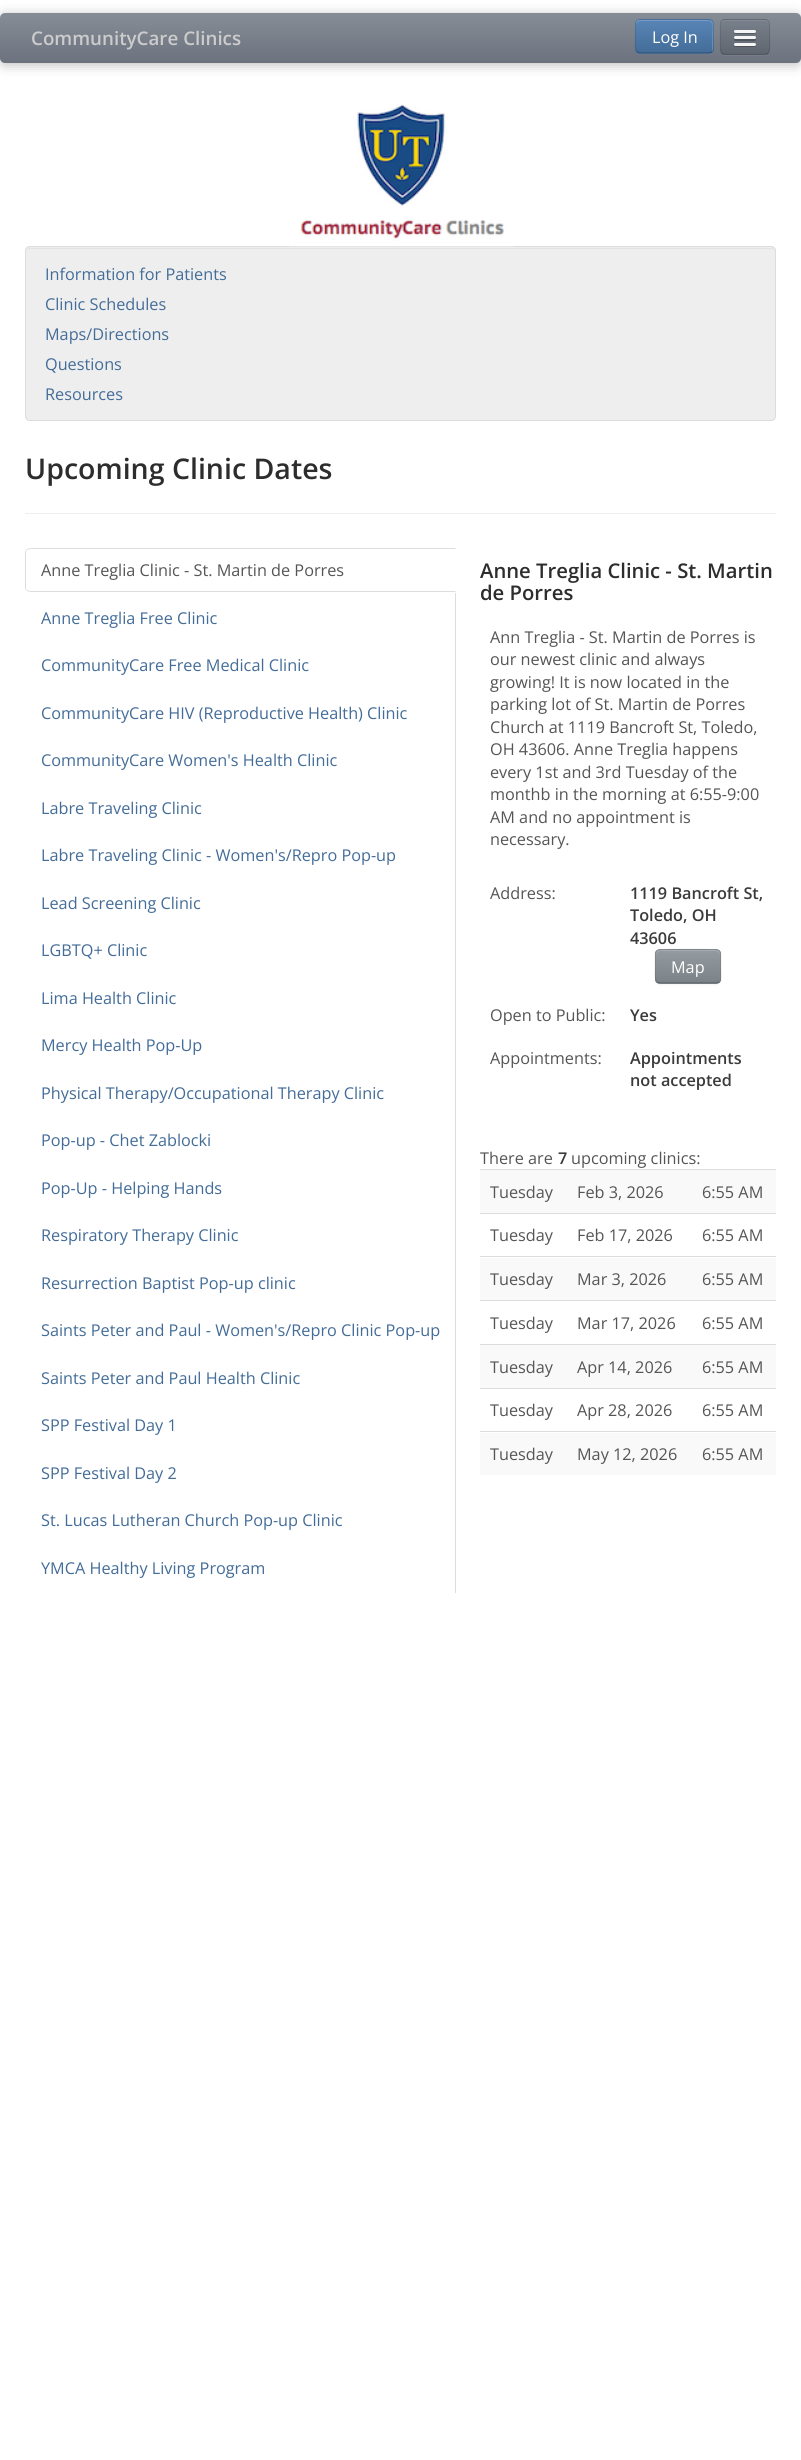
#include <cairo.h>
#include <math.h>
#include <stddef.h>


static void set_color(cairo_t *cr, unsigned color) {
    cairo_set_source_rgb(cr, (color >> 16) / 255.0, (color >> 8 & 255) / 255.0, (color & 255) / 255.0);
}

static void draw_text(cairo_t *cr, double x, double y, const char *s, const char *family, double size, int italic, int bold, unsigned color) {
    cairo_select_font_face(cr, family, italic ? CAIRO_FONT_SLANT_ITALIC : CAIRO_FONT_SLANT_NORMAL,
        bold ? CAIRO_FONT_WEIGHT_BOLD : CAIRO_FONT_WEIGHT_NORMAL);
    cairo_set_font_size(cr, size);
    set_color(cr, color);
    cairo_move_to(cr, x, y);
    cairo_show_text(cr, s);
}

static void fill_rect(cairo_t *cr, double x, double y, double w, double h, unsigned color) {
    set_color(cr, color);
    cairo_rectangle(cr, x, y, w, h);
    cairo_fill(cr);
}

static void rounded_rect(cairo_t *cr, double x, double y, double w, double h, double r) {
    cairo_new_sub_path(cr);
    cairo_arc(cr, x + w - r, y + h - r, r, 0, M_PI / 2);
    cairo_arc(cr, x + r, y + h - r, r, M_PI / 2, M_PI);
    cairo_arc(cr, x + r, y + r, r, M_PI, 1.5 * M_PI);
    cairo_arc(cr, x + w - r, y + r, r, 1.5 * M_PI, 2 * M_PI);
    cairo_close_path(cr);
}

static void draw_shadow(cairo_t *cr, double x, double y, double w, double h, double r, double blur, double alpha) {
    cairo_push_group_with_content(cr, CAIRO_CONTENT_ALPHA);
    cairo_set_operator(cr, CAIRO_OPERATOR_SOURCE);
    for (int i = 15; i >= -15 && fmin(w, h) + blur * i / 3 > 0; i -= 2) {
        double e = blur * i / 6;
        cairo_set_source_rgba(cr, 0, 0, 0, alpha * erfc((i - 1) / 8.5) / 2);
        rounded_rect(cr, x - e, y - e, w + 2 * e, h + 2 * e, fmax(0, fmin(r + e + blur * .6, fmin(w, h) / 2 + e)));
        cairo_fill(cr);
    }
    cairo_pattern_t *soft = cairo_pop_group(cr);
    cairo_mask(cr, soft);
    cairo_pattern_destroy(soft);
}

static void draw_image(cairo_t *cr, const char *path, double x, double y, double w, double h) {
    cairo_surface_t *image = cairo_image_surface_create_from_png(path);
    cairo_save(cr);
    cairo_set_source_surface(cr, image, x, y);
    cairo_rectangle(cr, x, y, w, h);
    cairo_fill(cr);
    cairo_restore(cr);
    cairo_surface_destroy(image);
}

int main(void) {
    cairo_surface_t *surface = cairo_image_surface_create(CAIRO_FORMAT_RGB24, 801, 2460);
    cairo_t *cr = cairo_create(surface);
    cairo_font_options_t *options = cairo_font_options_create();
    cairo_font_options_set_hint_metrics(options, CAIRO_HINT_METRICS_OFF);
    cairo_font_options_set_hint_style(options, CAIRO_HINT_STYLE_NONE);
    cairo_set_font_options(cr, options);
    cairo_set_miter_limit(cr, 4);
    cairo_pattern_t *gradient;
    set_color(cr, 0xFFFFFF);
    cairo_paint(cr);
    set_color(cr, 0x000000);
    draw_shadow(cr, 0, 15, 801, 50, 5, 6, 0.25);
    gradient = cairo_pattern_create_linear(401, 12, 401, 63);
    cairo_pattern_add_color_stop_rgba(gradient, 0, 0.525, 0.553, 0.592, 1);
    cairo_pattern_add_color_stop_rgba(gradient, 1, 0.424, 0.451, 0.494, 1);
    cairo_set_source(cr, gradient);
    cairo_pattern_destroy(gradient);
    rounded_rect(cr, 0, 13, 801, 50, 5);
    cairo_fill(cr);
    draw_text(cr, 31, 45, "CommunityCare Clinics", "Open Sans SemiBold", 18.75, 0, 0, 0xCCCCCC);
    set_color(cr, 0x507BAA);
    rounded_rect(cr, 635, 19, 79, 35, 5);
    cairo_fill(cr);
    cairo_save(cr);
    rounded_rect(cr, 635, 19, 79, 35, 5);
    cairo_clip(cr);
    gradient = cairo_pattern_create_linear(674, 20, 674, 53);
    cairo_pattern_add_color_stop_rgba(gradient, 0, 0.345, 0.522, 0.714, 1);
    cairo_pattern_add_color_stop_rgba(gradient, 1, 0.263, 0.424, 0.596, 1);
    cairo_set_source(cr, gradient);
    cairo_pattern_destroy(gradient);
    cairo_rectangle(cr, 635, 20, 79, 33);
    cairo_fill(cr);
    cairo_restore(cr);
    cairo_set_source_rgba(cr, 1, 1, 1, 0.2);
    cairo_new_path(cr);
    cairo_move_to(cr, 640, 21);
    cairo_line_to(cr, 709, 21);
    cairo_curve_to(cr, 714, 21, 712, 31, 712, 33);
    cairo_line_to(cr, 712, 52);
    cairo_curve_to(cr, 714, 50, 713, 40, 713, 36);
    cairo_curve_to(cr, 713, 19, 716, 20, 698, 20);
    cairo_line_to(cr, 638, 20);
    cairo_curve_to(cr, 636, 21, 636, 23, 636, 25);
    cairo_curve_to(cr, 636, 23, 638, 21, 640, 21);
    cairo_close_path(cr);
    cairo_fill(cr);
    cairo_new_path(cr);
    cairo_move_to(cr, 712, 52);
    cairo_line_to(cr, 709, 53);
    cairo_line_to(cr, 639.5, 53);
    cairo_line_to(cr, 637, 52);
    cairo_set_source_rgba(cr, 0, 0, 0, 0.25);
    cairo_set_line_width(cr, 1.2);
    cairo_stroke(cr);
    cairo_new_path(cr);
    cairo_move_to(cr, 637, 52);
    cairo_curve_to(cr, 634.5, 49.5, 635.5, 39.5, 635.5, 36);
    cairo_curve_to(cr, 635.5, 18, 633, 19.5, 651.5, 19.5);
    cairo_line_to(cr, 697.5, 19.5);
    cairo_curve_to(cr, 716, 19.5, 713, 18, 713, 36);
    cairo_curve_to(cr, 713, 39.5, 714.5, 49.5, 712, 52);
    cairo_set_source_rgba(cr, 0, 0, 0, 0.1);
    cairo_stroke(cr);
    draw_text(cr, 652, 43, "Log In", "Open Sans", 16.25, 0, 0, 0xFFFFFF);
    set_color(cr, 0x7B818B);
    cairo_new_path(cr);
    cairo_move_to(cr, 720, 50);
    cairo_curve_to(cr, 720, 57, 726, 56, 732, 56);
    cairo_line_to(cr, 758, 56);
    cairo_curve_to(cr, 764, 56, 770, 57, 770, 50);
    cairo_curve_to(cr, 770, 53, 768, 55, 765, 55);
    cairo_line_to(cr, 725, 55);
    cairo_curve_to(cr, 722, 55, 720, 53, 720, 50);
    cairo_close_path(cr);
    cairo_fill(cr);
    set_color(cr, 0x6F7681);
    rounded_rect(cr, 720, 19, 50, 36, 5);
    cairo_fill(cr);
    cairo_save(cr);
    rounded_rect(cr, 720, 19, 50, 36, 5);
    cairo_clip(cr);
    gradient = cairo_pattern_create_linear(745, 20, 745, 54);
    cairo_pattern_add_color_stop_rgba(gradient, 0, 0.471, 0.502, 0.545, 1);
    cairo_pattern_add_color_stop_rgba(gradient, 1, 0.376, 0.4, 0.439, 1);
    cairo_set_source(cr, gradient);
    cairo_pattern_destroy(gradient);
    cairo_rectangle(cr, 720, 20, 50, 34);
    cairo_fill(cr);
    cairo_restore(cr);
    set_color(cr, 0x858D97);
    cairo_new_path(cr);
    cairo_move_to(cr, 725, 21);
    cairo_line_to(cr, 765, 21);
    cairo_curve_to(cr, 767, 21, 769, 23, 769, 25);
    cairo_curve_to(cr, 769, 19, 763, 20, 758, 20);
    cairo_line_to(cr, 732, 20);
    cairo_curve_to(cr, 727, 20, 721, 19, 721, 25);
    cairo_curve_to(cr, 721, 23, 723, 21, 725, 21);
    cairo_close_path(cr);
    cairo_fill(cr);
    cairo_new_path(cr);
    cairo_move_to(cr, 768, 53);
    cairo_curve_to(cr, 767.5, 54, 766, 54.5, 765, 54.5);
    cairo_line_to(cr, 725, 54.5);
    cairo_curve_to(cr, 724, 54.5, 722.5, 54, 722, 53);
    cairo_set_source_rgba(cr, 0, 0, 0, 0.25);
    cairo_stroke(cr);
    cairo_new_path(cr);
    cairo_move_to(cr, 722, 53);
    cairo_curve_to(cr, 719.5, 50.5, 720.5, 40, 720.5, 37);
    cairo_line_to(cr, 720.5, 28);
    cairo_curve_to(cr, 720.5, 25, 720, 20.5, 724, 19.5);
    cairo_line_to(cr, 766, 19.5);
    cairo_curve_to(cr, 770, 20.5, 769.5, 25, 769.5, 28);
    cairo_line_to(cr, 769.5, 37);
    cairo_curve_to(cr, 769.5, 40, 770.5, 50.5, 768, 53);
    cairo_set_source_rgba(cr, 0, 0, 0, 0.1);
    cairo_stroke(cr);
    set_color(cr, 0x535960);
    cairo_new_path(cr);
    cairo_move_to(cr, 734, 32);
    cairo_curve_to(cr, 733.5, 34.5, 738, 34, 738.5, 34);
    cairo_line_to(cr, 751.5, 34);
    cairo_curve_to(cr, 752, 34, 756.5, 34.5, 756, 32);
    cairo_curve_to(cr, 755, 33, 735, 33, 734, 32);
    cairo_close_path(cr);
    cairo_fill(cr);
    set_color(cr, 0xF5F5F5);
    rounded_rect(cr, 734, 30, 22, 3, 1.5);
    cairo_fill(cr);
    set_color(cr, 0x50545D);
    cairo_new_path(cr);
    cairo_move_to(cr, 734.5, 38.5);
    cairo_line_to(cr, 734, 40);
    cairo_curve_to(cr, 734.5, 41.5, 737.5, 41, 738.5, 41);
    cairo_line_to(cr, 751.5, 41);
    cairo_curve_to(cr, 752.5, 41, 755.5, 41.5, 756, 40);
    cairo_line_to(cr, 755.5, 38.5);
    cairo_close_path(cr);
    cairo_fill(cr);
    set_color(cr, 0xF5F5F5);
    rounded_rect(cr, 734, 36, 22, 3, 1.5);
    cairo_fill(cr);
    set_color(cr, 0x4C5159);
    cairo_new_path(cr);
    cairo_move_to(cr, 734, 44.5);
    cairo_curve_to(cr, 732.5, 47.5, 738, 47, 738.5, 47);
    cairo_line_to(cr, 751.5, 47);
    cairo_curve_to(cr, 752, 47, 757.5, 47.5, 756, 44.5);
    cairo_curve_to(cr, 755, 45, 735, 45, 734, 44.5);
    cairo_close_path(cr);
    cairo_fill(cr);
    set_color(cr, 0xF5F5F5);
    rounded_rect(cr, 734, 43, 22, 3, 1.5);
    cairo_fill(cr);
    set_color(cr, 0xEEEEEE);
    rounded_rect(cr, 25, 246, 751, 175, 5);
    cairo_fill(cr);
    set_color(cr, 0xE2E2E2);
    cairo_new_path(cr);
    cairo_move_to(cr, 30, 249);
    cairo_line_to(cr, 771, 249);
    cairo_curve_to(cr, 773, 249, 775, 250, 775, 252);
    cairo_curve_to(cr, 775, 250, 773, 248, 771, 248);
    cairo_line_to(cr, 30, 248);
    cairo_curve_to(cr, 28, 248, 26, 250, 26, 252);
    cairo_curve_to(cr, 26, 250, 28, 249, 30, 249);
    cairo_close_path(cr);
    cairo_fill(cr);
    rounded_rect(cr, 25.5, 246.5, 750, 174, 4.5);
    set_color(cr, 0xDCDCDC);
    cairo_set_line_width(cr, 1);
    cairo_stroke(cr);
    draw_image(cr, "assets/img1.png", 289, 104, 225, 143);
    draw_text(cr, 45, 280, "Information for Patients", "Open Sans", 16.25, 0, 0, 0x436C98);
    draw_text(cr, 45, 310, "Clinic Schedules", "Open Sans", 16.25, 0, 0, 0x436C98);
    draw_text(cr, 45, 340, "Maps/Directions", "Open Sans", 16.25, 0, 0, 0x436C98);
    draw_text(cr, 45, 370, "Questions", "Open Sans", 16.25, 0, 0, 0x436C98);
    draw_text(cr, 45, 400, "Resources", "Open Sans", 16.25, 0, 0, 0x436C98);
    fill_rect(cr, 25, 513, 751, 1, 0xEEEEEE);
    draw_text(cr, 25, 479, "Upcoming Clinic Dates", "Open Sans SemiBold", 28.5, 0, 0, 0x2D2D2D);
    fill_rect(cr, 455, 593, 1, 1000, 0xDDDDDD);
    cairo_new_path(cr);
    cairo_move_to(cr, 30, 548);
    cairo_line_to(cr, 27, 549);
    cairo_line_to(cr, 27, 550);
    cairo_line_to(cr, 30, 549);
    cairo_line_to(cr, 455, 549);
    cairo_line_to(cr, 456, 548);
    cairo_close_path(cr);
    cairo_fill(cr);
    cairo_new_path(cr);
    cairo_move_to(cr, 456, 592);
    cairo_line_to(cr, 30, 592);
    cairo_line_to(cr, 27, 591);
    cairo_line_to(cr, 27, 590);
    cairo_line_to(cr, 30, 591);
    cairo_line_to(cr, 455, 591);
    cairo_close_path(cr);
    cairo_fill(cr);
    cairo_new_path(cr);
    cairo_move_to(cr, 25, 552);
    cairo_line_to(cr, 25, 588);
    cairo_curve_to(cr, 25, 589, 26, 590, 27, 591);
    cairo_line_to(cr, 27, 590);
    cairo_curve_to(cr, 26, 590, 26, 589, 26, 588);
    cairo_line_to(cr, 26, 552);
    cairo_curve_to(cr, 26, 551, 26, 550, 27, 550);
    cairo_line_to(cr, 27, 549);
    cairo_curve_to(cr, 26, 550, 25, 551, 25, 552);
    cairo_close_path(cr);
    cairo_fill(cr);
    draw_text(cr, 41, 576, "Anne Treglia Clinic - St. Martin de Porres", "Open Sans", 16.25, 0, 0, 0x555555);
    draw_text(cr, 41, 624, "Anne Treglia Free Clinic", "Open Sans", 16.25, 0, 0, 0x436C98);
    draw_text(cr, 41, 671, "CommunityCare Free Medical Clinic", "Open Sans", 16.25, 0, 0, 0x436C98);
    draw_text(cr, 41, 719, "CommunityCare HIV (Reproductive Health) Clinic", "Open Sans", 16.25, 0, 0, 0x436C98);
    draw_text(cr, 41, 766, "CommunityCare Women's Health Clinic", "Open Sans", 16.25, 0, 0, 0x436C98);
    draw_text(cr, 41, 814, "Labre Traveling Clinic", "Open Sans", 16.25, 0, 0, 0x436C98);
    draw_text(cr, 41, 861, "Labre Traveling Clinic - Women's/Repro Pop-up", "Open Sans", 16.25, 0, 0, 0x436C98);
    draw_text(cr, 41, 909, "Lead Screening Clinic", "Open Sans", 16.25, 0, 0, 0x436C98);
    draw_text(cr, 41, 956, "LGBTQ+ Clinic", "Open Sans", 16.25, 0, 0, 0x436C98);
    draw_text(cr, 41, 1004, "Lima Health Clinic", "Open Sans", 16.25, 0, 0, 0x436C98);
    draw_text(cr, 41, 1051, "Mercy Health Pop-Up", "Open Sans", 16.25, 0, 0, 0x436C98);
    draw_text(cr, 41, 1099, "Physical Therapy/Occupational Therapy Clinic", "Open Sans", 16.25, 0, 0, 0x436C98);
    draw_text(cr, 41, 1146, "Pop-up - Chet Zablocki", "Open Sans", 16.25, 0, 0, 0x436C98);
    draw_text(cr, 41, 1194, "Pop-Up - Helping Hands", "Open Sans", 16.25, 0, 0, 0x436C98);
    draw_text(cr, 41, 1241, "Respiratory Therapy Clinic", "Open Sans", 16.25, 0, 0, 0x436C98);
    draw_text(cr, 41, 1289, "Resurrection Baptist Pop-up clinic", "Open Sans", 16.25, 0, 0, 0x436C98);
    draw_text(cr, 41, 1336, "Saints Peter and Paul - Women's/Repro Clinic Pop-up", "Open Sans", 16.25, 0, 0, 0x436C98);
    draw_text(cr, 41, 1384, "Saints Peter and Paul Health Clinic", "Open Sans", 16.25, 0, 0, 0x436C98);
    draw_text(cr, 41, 1431, "SPP Festival Day 1", "Open Sans", 16.25, 0, 0, 0x436C98);
    draw_text(cr, 41, 1479, "SPP Festival Day 2", "Open Sans", 16.25, 0, 0, 0x436C98);
    draw_text(cr, 41, 1526, "St. Lucas Lutheran Church Pop-up Clinic", "Open Sans", 16.25, 0, 0, 0x436C98);
    draw_text(cr, 41, 1574, "YMCA Healthy Living Program", "Open Sans", 16.25, 0, 0, 0x436C98);
    draw_text(cr, 480, 578, "Anne Treglia Clinic - St. Martin", "Open Sans SemiBold", 20.25, 0, 0, 0x2D2D2D);
    draw_text(cr, 480, 600, "de Porres", "Open Sans SemiBold", 20.25, 0, 0, 0x2D2D2D);
    draw_text(cr, 490, 643, "Ann Treglia - St. Martin de Porres is", "Open Sans", 16.25, 0, 0, 0x555555);
    draw_text(cr, 490, 665, "our newest clinic and always", "Open Sans", 16.25, 0, 0, 0x555555);
    draw_text(cr, 490, 688, "growing! It is now located in the", "Open Sans", 16.25, 0, 0, 0x555555);
    draw_text(cr, 490, 710, "parking lot of St. Martin de Porres", "Open Sans", 16.25, 0, 0, 0x555555);
    draw_text(cr, 490, 733, "Church at 1119 Bancroft St, Toledo,", "Open Sans", 16.25, 0, 0, 0x555555);
    draw_text(cr, 490, 755, "OH 43606. Anne Treglia happens", "Open Sans", 16.25, 0, 0, 0x555555);
    draw_text(cr, 490, 778, "every 1st and 3rd Tuesday of the", "Open Sans", 16.25, 0, 0, 0x555555);
    draw_text(cr, 490, 800, "monthb in the morning at 6:55-9:00", "Open Sans", 16.25, 0, 0, 0x555555);
    draw_text(cr, 490, 823, "AM and no appointment is", "Open Sans", 16.25, 0, 0, 0x555555);
    draw_text(cr, 490, 845, "necessary.", "Open Sans", 16.25, 0, 0, 0x555555);
    draw_text(cr, 490, 899, "Address:", "Open Sans", 16.25, 0, 0, 0x555555);
    draw_text(cr, 630, 899, "1119 Bancroft St,", "Open Sans SemiBold", 16.25, 0, 0, 0x3B3B3B);
    draw_text(cr, 630, 921, "Toledo, OH", "Open Sans SemiBold", 16.25, 0, 0, 0x3B3B3B);
    draw_text(cr, 630, 944, "43606", "Open Sans SemiBold", 16.25, 0, 0, 0x3B3B3B);
    set_color(cr, 0x000000);
    draw_shadow(cr, 655, 950, 66, 35, 5, 1, 0.05);
    set_color(cr, 0x8A9196);
    rounded_rect(cr, 655, 949, 66, 35, 5);
    cairo_fill(cr);
    cairo_save(cr);
    rounded_rect(cr, 655, 949, 66, 35, 5);
    cairo_clip(cr);
    gradient = cairo_pattern_create_linear(688, 950, 688, 983);
    cairo_pattern_add_color_stop_rgba(gradient, 0, 0.584, 0.608, 0.627, 1);
    cairo_pattern_add_color_stop_rgba(gradient, 1, 0.478, 0.51, 0.533, 1);
    cairo_set_source(cr, gradient);
    cairo_pattern_destroy(gradient);
    cairo_rectangle(cr, 655, 950, 66, 33);
    cairo_fill(cr);
    cairo_restore(cr);
    set_color(cr, 0xAAAFB3);
    cairo_new_path(cr);
    cairo_move_to(cr, 660, 951);
    cairo_line_to(cr, 716, 951);
    cairo_curve_to(cr, 718, 951, 720, 953, 720, 955);
    cairo_curve_to(cr, 720, 948, 712, 950, 707, 950);
    cairo_line_to(cr, 669, 950);
    cairo_curve_to(cr, 664, 950, 656, 948, 656, 955);
    cairo_curve_to(cr, 656, 953, 658, 951, 660, 951);
    cairo_close_path(cr);
    cairo_fill(cr);
    cairo_new_path(cr);
    cairo_move_to(cr, 719.5, 982);
    cairo_curve_to(cr, 718.5, 982.5, 717.5, 983, 716, 983);
    cairo_line_to(cr, 660, 983);
    cairo_curve_to(cr, 659, 983, 657.5, 982.5, 657, 982);
    cairo_set_source_rgba(cr, 0, 0, 0, 0.25);
    cairo_set_line_width(cr, 1.2);
    cairo_stroke(cr);
    cairo_new_path(cr);
    cairo_move_to(cr, 657, 982);
    cairo_curve_to(cr, 654.5, 979.5, 655.5, 969.5, 655.5, 966);
    cairo_curve_to(cr, 655.5, 949, 652.5, 949.5, 669.5, 949.5);
    cairo_line_to(cr, 707, 949.5);
    cairo_curve_to(cr, 723.5, 949.5, 720.5, 949, 720.5, 966);
    cairo_curve_to(cr, 720.5, 969.5, 722, 979.5, 719.5, 982);
    cairo_set_source_rgba(cr, 0, 0, 0, 0.1);
    cairo_stroke(cr);
    draw_text(cr, 671, 973, "Map", "Open Sans", 16.25, 0, 0, 0xFFFFFF);
    draw_text(cr, 490, 1021, "Open to Public:", "Open Sans", 16.25, 0, 0, 0x555555);
    draw_text(cr, 630, 1021, "Yes", "Open Sans SemiBold", 16.25, 0, 0, 0x3B3B3B);
    draw_text(cr, 490, 1064, "Appointments:", "Open Sans", 16.25, 0, 0, 0x555555);
    draw_text(cr, 630, 1064, "Appointments", "Open Sans SemiBold", 16.25, 0, 0, 0x3B3B3B);
    draw_text(cr, 630, 1086, "not accepted", "Open Sans SemiBold", 16.25, 0, 0, 0x3B3B3B);
    draw_text(cr, 480, 1164, "There are", "Open Sans", 16.25, 0, 0, 0x555555);
    draw_text(cr, 558, 1164, "7", "Open Sans SemiBold", 16.25, 0, 0, 0x3B3B3B);
    draw_text(cr, 571, 1164, "upcoming clinics:", "Open Sans", 16.25, 0, 0, 0x555555);
    fill_rect(cr, 480, 1170, 296, 43, 0xF9F9F9);
    draw_text(cr, 490, 1198, "Tuesday", "Open Sans", 16.25, 0, 0, 0x555555);
    draw_text(cr, 577, 1198, "Feb 3, 2026", "Open Sans", 16.25, 0, 0, 0x555555);
    fill_rect(cr, 480, 1169, 296, 1, 0xDDDDDD);
    draw_text(cr, 702, 1198, "6:55 AM", "Open Sans", 16.25, 0, 0, 0x555555);
    draw_text(cr, 490, 1241, "Tuesday", "Open Sans", 16.25, 0, 0, 0x555555);
    draw_text(cr, 577, 1241, "Feb 17, 2026", "Open Sans", 16.25, 0, 0, 0x555555);
    fill_rect(cr, 480, 1213, 296, 1, 0xDDDDDD);
    draw_text(cr, 702, 1241, "6:55 AM", "Open Sans", 16.25, 0, 0, 0x555555);
    fill_rect(cr, 480, 1258, 296, 42, 0xF9F9F9);
    draw_text(cr, 490, 1285, "Tuesday", "Open Sans", 16.25, 0, 0, 0x555555);
    draw_text(cr, 577, 1285, "Mar 3, 2026", "Open Sans", 16.25, 0, 0, 0x555555);
    fill_rect(cr, 480, 1256, 296, 1, 0xDDDDDD);
    draw_text(cr, 702, 1285, "6:55 AM", "Open Sans", 16.25, 0, 0, 0x555555);
    draw_text(cr, 490, 1329, "Tuesday", "Open Sans", 16.25, 0, 0, 0x555555);
    draw_text(cr, 577, 1329, "Mar 17, 2026", "Open Sans", 16.25, 0, 0, 0x555555);
    fill_rect(cr, 480, 1300, 296, 1, 0xDDDDDD);
    draw_text(cr, 702, 1329, "6:55 AM", "Open Sans", 16.25, 0, 0, 0x555555);
    fill_rect(cr, 480, 1345, 296, 43, 0xF9F9F9);
    draw_text(cr, 490, 1373, "Tuesday", "Open Sans", 16.25, 0, 0, 0x555555);
    draw_text(cr, 577, 1373, "Apr 14, 2026", "Open Sans", 16.25, 0, 0, 0x555555);
    fill_rect(cr, 480, 1344, 296, 1, 0xDDDDDD);
    draw_text(cr, 702, 1373, "6:55 AM", "Open Sans", 16.25, 0, 0, 0x555555);
    draw_text(cr, 490, 1416, "Tuesday", "Open Sans", 16.25, 0, 0, 0x555555);
    draw_text(cr, 577, 1416, "Apr 28, 2026", "Open Sans", 16.25, 0, 0, 0x555555);
    fill_rect(cr, 480, 1388, 296, 1, 0xDDDDDD);
    draw_text(cr, 702, 1416, "6:55 AM", "Open Sans", 16.25, 0, 0, 0x555555);
    fill_rect(cr, 480, 1433, 296, 42, 0xF9F9F9);
    draw_text(cr, 490, 1460, "Tuesday", "Open Sans", 16.25, 0, 0, 0x555555);
    draw_text(cr, 577, 1460, "May 12, 2026", "Open Sans", 16.25, 0, 0, 0x555555);
    fill_rect(cr, 480, 1431, 296, 1, 0xDDDDDD);
    draw_text(cr, 702, 1460, "6:55 AM", "Open Sans", 16.25, 0, 0, 0x555555);
    cairo_surface_write_to_png(surface, "output.png");
    cairo_font_options_destroy(options);
    cairo_destroy(cr);
    cairo_surface_destroy(surface);
    return 0;
}
